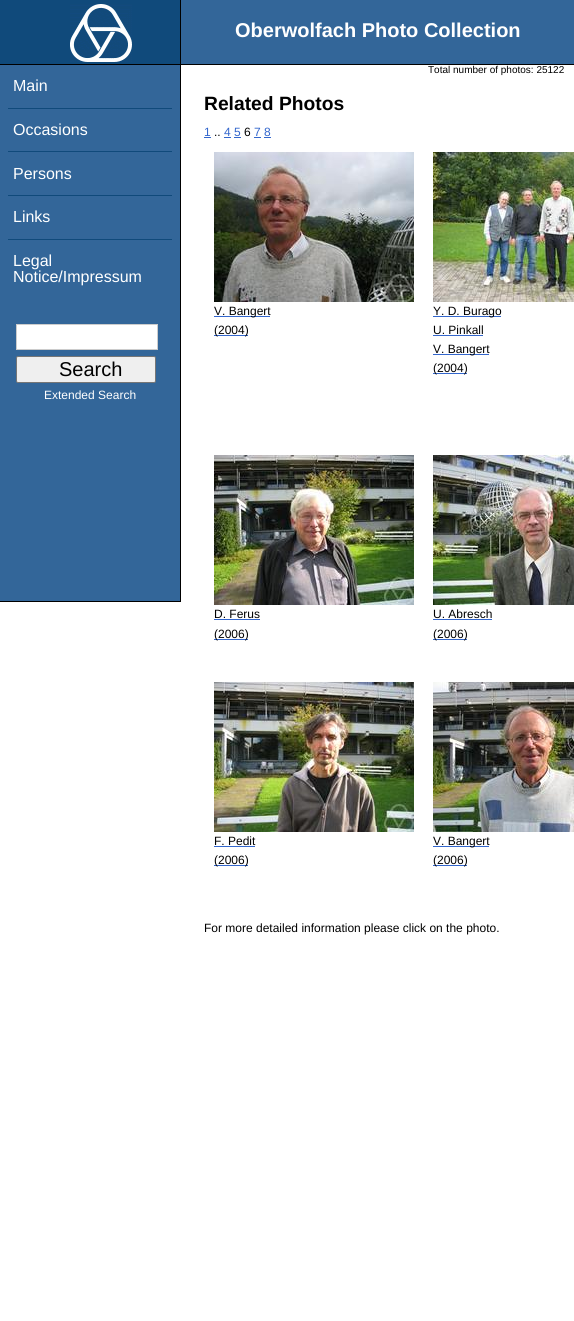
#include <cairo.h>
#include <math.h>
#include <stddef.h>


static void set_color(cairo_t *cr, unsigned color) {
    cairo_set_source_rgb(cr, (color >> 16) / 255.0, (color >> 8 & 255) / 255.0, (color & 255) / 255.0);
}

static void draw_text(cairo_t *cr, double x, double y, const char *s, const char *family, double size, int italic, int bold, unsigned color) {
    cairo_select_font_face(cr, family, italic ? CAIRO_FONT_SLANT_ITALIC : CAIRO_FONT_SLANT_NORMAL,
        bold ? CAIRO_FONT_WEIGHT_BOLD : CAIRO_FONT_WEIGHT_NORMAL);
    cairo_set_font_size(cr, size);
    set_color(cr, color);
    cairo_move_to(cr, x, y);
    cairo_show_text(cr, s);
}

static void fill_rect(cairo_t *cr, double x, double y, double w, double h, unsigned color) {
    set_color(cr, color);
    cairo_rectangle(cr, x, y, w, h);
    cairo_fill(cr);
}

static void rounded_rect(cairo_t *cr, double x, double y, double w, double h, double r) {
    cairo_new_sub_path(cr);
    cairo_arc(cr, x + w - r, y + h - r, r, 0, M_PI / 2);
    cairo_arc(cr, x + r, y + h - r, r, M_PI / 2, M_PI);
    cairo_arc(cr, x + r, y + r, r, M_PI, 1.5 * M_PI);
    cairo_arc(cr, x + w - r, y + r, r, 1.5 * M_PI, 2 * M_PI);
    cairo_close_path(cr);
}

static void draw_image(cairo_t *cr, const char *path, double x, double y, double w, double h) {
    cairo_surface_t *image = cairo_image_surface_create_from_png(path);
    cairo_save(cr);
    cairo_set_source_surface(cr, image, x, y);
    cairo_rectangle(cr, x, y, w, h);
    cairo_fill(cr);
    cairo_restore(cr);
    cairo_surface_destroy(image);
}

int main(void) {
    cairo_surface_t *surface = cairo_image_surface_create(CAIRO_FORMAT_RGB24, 574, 1321);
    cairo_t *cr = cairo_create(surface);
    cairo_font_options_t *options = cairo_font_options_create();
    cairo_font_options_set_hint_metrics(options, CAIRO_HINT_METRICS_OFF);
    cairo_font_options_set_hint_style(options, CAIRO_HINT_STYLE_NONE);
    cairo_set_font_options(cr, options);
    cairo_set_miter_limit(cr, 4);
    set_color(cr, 0xFFFFFF);
    cairo_paint(cr);
    fill_rect(cr, 181, 0, 393, 64, 0x336699);
    fill_rect(cr, 0, 64, 574, 1, 0x000000);
    fill_rect(cr, 0, 0, 180, 64, 0x104A7B);
    fill_rect(cr, 180, 0, 1, 64, 0x000000);
    draw_image(cr, "assets/img1.png", 70, 4, 62, 58);
    draw_text(cr, 235, 37, "Oberwolfach Photo Collection", "Liberation Sans", 20, 0, 1, 0xFFFFFF);
    draw_text(cr, 428, 73, "Total number of photos: 25122", "Liberation Sans", 10, 0, 0, 0x000000);
    fill_rect(cr, 0, 65, 180, 536, 0x336699);
    fill_rect(cr, 180, 65, 1, 537, 0x000000);
    fill_rect(cr, 0, 601, 181, 1, 0x000000);
    draw_text(cr, 13, 91, "Main", "Liberation Sans", 16, 0, 0, 0xFFFFFF);
    fill_rect(cr, 8, 108, 164, 1, 0x104A7B);
    draw_text(cr, 13, 135, "Occasions", "Liberation Sans", 16, 0, 0, 0xFFFFFF);
    fill_rect(cr, 8, 151, 164, 1, 0x104A7B);
    draw_text(cr, 13, 179, "Persons", "Liberation Sans", 16, 0, 0, 0xFFFFFF);
    fill_rect(cr, 8, 195, 164, 1, 0x104A7B);
    draw_text(cr, 13, 222, "Links", "Liberation Sans", 16, 0, 0, 0xFFFFFF);
    fill_rect(cr, 8, 239, 164, 1, 0x104A7B);
    draw_text(cr, 13, 266, "Legal", "Liberation Sans", 16, 0, 0, 0xFFFFFF);
    draw_text(cr, 13, 282, "Notice/Impressum", "Liberation Sans", 16, 0, 0, 0xFFFFFF);
    cairo_rectangle(cr, 16.5, 324.5, 141, 25);
    cairo_fill_preserve(cr);
    set_color(cr, 0xCCCCCC);
    cairo_set_line_width(cr, 1);
    cairo_stroke(cr);
    set_color(cr, 0xEFEFEF);
    rounded_rect(cr, 16.5, 356.5, 139, 26, 1.5);
    cairo_fill_preserve(cr);
    set_color(cr, 0x767676);
    cairo_stroke(cr);
    draw_text(cr, 59, 376, "Search", "Liberation Sans", 20, 0, 0, 0x000000);
    draw_text(cr, 44, 399, "Extended Search", "Liberation Sans", 12, 0, 0, 0xFFFFFF);
    draw_text(cr, 204, 110, "Related Photos", "Liberation Sans", 19.25, 0, 1, 0x000000);
    draw_text(cr, 204, 136, "1", "Liberation Sans", 12, 0, 0, 0x3366CC);
    fill_rect(cr, 204, 137, 7, 1, 0x3366CC);
    draw_text(cr, 214, 136, "..", "Liberation Sans", 12, 0, 0, 0x000000);
    draw_text(cr, 224, 136, "4 5", "Liberation Sans", 12, 0, 0, 0x3366CC);
    fill_rect(cr, 224, 137, 7, 1, 0x3366CC);
    draw_text(cr, 244, 136, "6", "Liberation Sans", 12, 0, 0, 0x000000);
    draw_text(cr, 254, 136, "7 8", "Liberation Sans", 12, 0, 0, 0x3366CC);
    fill_rect(cr, 254, 137, 7, 1, 0x3366CC);
    fill_rect(cr, 234, 137, 7, 1, 0x3366CC);
    fill_rect(cr, 264, 137, 7, 1, 0x3366CC);
    draw_image(cr, "assets/img2.png", 214, 152, 200, 150);
    fill_rect(cr, 214, 316, 56, 1, 0x3366CC);
    draw_text(cr, 214, 315, "V. Bangert", "Liberation Sans", 12, 0, 0, 0x000000);
    fill_rect(cr, 214, 335, 34, 1, 0x3366CC);
    draw_text(cr, 214, 334, "(2004)", "Liberation Sans", 12, 0, 0, 0x000000);
    draw_image(cr, "assets/img3.png", 433, 152, 141, 150);
    fill_rect(cr, 433, 316, 68, 1, 0x3366CC);
    draw_text(cr, 433, 315, "Y. D. Burago", "Liberation Sans", 12, 0, 0, 0x000000);
    draw_text(cr, 433, 334, "U. Pinkall", "Liberation Sans", 12, 0, 0, 0x000000);
    fill_rect(cr, 433, 335, 50, 1, 0x3366CC);
    fill_rect(cr, 433, 354, 56, 1, 0x3366CC);
    draw_text(cr, 433, 353, "V. Bangert", "Liberation Sans", 12, 0, 0, 0x000000);
    fill_rect(cr, 433, 373, 34, 1, 0x3366CC);
    draw_text(cr, 433, 372, "(2004)", "Liberation Sans", 12, 0, 0, 0x000000);
    draw_image(cr, "assets/img4.png", 214, 455, 200, 150);
    draw_text(cr, 214, 618, "D. Ferus", "Liberation Sans", 12, 0, 0, 0x000000);
    fill_rect(cr, 214, 619, 46, 1, 0x3366CC);
    fill_rect(cr, 214, 639, 34, 1, 0x3366CC);
    draw_text(cr, 214, 638, "(2006)", "Liberation Sans", 12, 0, 0, 0x000000);
    draw_image(cr, "assets/img5.png", 433, 455, 141, 150);
    draw_text(cr, 433, 618, "U. Abresch", "Liberation Sans", 12, 0, 0, 0x000000);
    fill_rect(cr, 433, 619, 59, 1, 0x3366CC);
    fill_rect(cr, 433, 639, 34, 1, 0x3366CC);
    draw_text(cr, 433, 638, "(2006)", "Liberation Sans", 12, 0, 0, 0x000000);
    draw_image(cr, "assets/img6.png", 214, 682, 200, 150);
    draw_text(cr, 214, 845, "F. Pedit", "Liberation Sans", 12, 0, 0, 0x000000);
    fill_rect(cr, 214, 846, 41, 1, 0x3366CC);
    fill_rect(cr, 214, 865, 34, 1, 0x3366CC);
    draw_text(cr, 214, 864, "(2006)", "Liberation Sans", 12, 0, 0, 0x000000);
    draw_image(cr, "assets/img7.png", 433, 682, 141, 150);
    fill_rect(cr, 433, 846, 56, 1, 0x3366CC);
    draw_text(cr, 433, 845, "V. Bangert", "Liberation Sans", 12, 0, 0, 0x000000);
    fill_rect(cr, 433, 865, 34, 1, 0x3366CC);
    draw_text(cr, 433, 864, "(2006)", "Liberation Sans", 12, 0, 0, 0x000000);
    draw_text(cr, 204, 932, "For more detailed information please click on the photo.", "Liberation Sans", 12, 0, 0, 0x000000);
    cairo_surface_write_to_png(surface, "output.png");
    cairo_font_options_destroy(options);
    cairo_destroy(cr);
    cairo_surface_destroy(surface);
    return 0;
}
